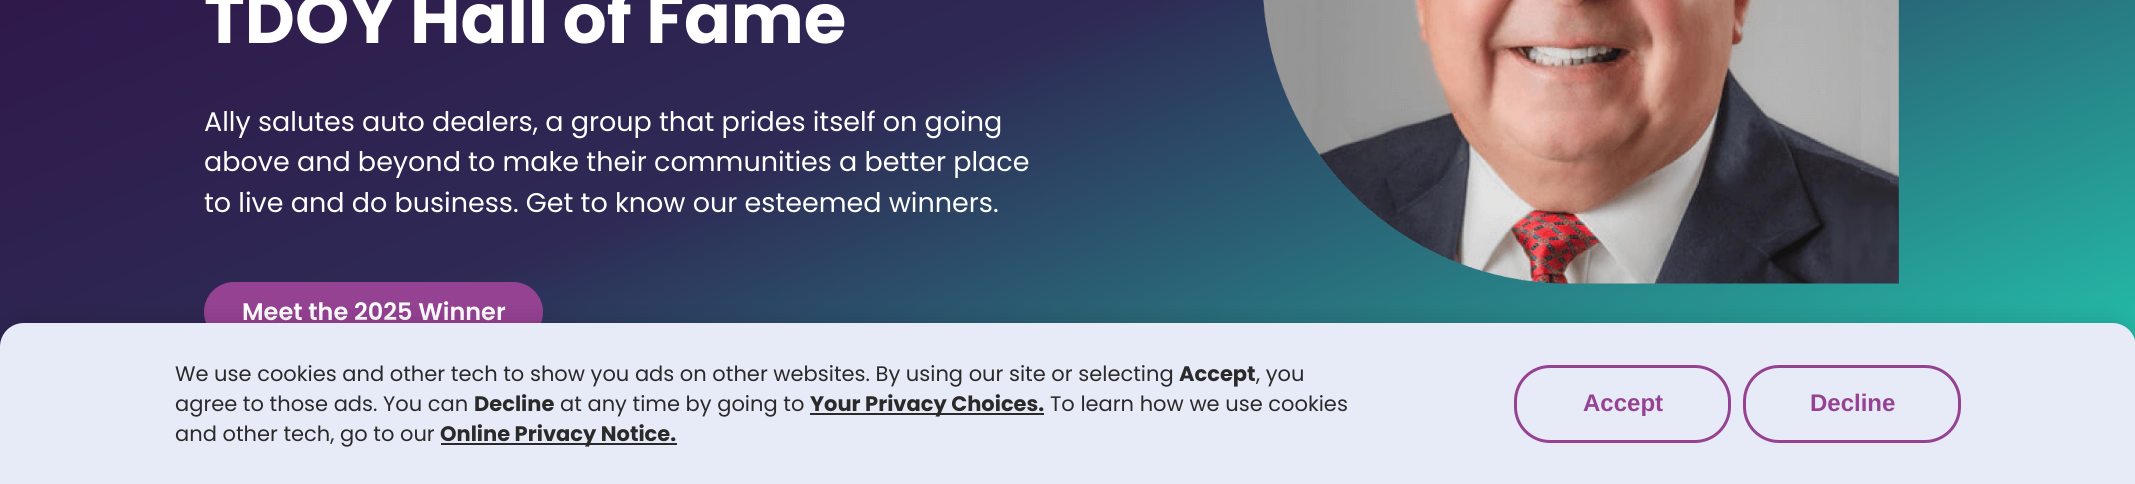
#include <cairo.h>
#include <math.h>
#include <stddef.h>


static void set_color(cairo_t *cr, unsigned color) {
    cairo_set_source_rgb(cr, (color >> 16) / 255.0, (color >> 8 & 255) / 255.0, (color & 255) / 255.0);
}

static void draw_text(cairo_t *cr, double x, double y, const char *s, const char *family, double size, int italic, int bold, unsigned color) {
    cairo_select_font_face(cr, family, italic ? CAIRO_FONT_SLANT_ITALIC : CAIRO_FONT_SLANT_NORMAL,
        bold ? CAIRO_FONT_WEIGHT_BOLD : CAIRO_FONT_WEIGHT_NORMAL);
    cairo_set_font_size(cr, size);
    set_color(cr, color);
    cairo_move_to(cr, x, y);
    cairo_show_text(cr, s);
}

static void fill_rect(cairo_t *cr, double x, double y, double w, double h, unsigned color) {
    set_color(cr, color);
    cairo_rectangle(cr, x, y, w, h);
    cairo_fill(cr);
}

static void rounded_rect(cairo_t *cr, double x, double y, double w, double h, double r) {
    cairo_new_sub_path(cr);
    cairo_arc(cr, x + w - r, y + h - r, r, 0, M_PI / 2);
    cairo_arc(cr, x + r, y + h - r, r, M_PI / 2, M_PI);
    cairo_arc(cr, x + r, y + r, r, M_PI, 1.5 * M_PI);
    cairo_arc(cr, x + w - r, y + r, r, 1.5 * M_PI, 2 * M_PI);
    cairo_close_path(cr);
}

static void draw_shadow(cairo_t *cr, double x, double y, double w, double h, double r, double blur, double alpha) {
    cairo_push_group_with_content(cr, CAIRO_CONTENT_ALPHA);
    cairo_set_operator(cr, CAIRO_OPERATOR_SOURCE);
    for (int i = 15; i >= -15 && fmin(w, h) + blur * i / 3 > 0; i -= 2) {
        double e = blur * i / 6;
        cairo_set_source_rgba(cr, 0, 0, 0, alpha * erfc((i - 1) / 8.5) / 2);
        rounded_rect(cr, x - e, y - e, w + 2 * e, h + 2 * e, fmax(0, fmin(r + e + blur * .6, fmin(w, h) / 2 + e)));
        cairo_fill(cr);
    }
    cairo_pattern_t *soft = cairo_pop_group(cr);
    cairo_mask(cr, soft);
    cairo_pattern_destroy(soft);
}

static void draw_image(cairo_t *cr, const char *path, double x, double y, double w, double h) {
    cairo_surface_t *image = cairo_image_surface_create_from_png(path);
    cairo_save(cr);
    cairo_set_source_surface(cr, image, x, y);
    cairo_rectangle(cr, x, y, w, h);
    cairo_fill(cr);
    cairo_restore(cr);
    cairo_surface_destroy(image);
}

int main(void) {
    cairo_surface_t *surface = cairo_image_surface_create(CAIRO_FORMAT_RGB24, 2135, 484);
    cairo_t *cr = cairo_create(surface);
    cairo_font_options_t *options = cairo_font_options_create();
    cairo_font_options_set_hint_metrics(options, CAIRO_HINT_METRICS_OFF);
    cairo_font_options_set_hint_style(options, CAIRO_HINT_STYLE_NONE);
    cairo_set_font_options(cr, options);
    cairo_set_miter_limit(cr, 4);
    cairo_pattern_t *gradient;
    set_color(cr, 0xFFFFFF);
    cairo_paint(cr);
    gradient = cairo_pattern_create_linear(745, -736, 1391, 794);
    cairo_pattern_add_color_stop_rgba(gradient, 0, 0.188, 0.035, 0.259, 1);
    cairo_pattern_add_color_stop_rgba(gradient, 0.5, 0.18, 0.165, 0.333, 1);
    cairo_pattern_add_color_stop_rgba(gradient, 1, 0.133, 0.839, 0.718, 1);
    cairo_set_source(cr, gradient);
    cairo_pattern_destroy(gradient);
    cairo_rectangle(cr, 0, 0, 2135, 347);
    cairo_fill(cr);
    draw_text(cr, 204, 43, "TDOY Hall of Fame", "Poppins", 69, 0, 1, 0xFFFFFF);
    draw_text(cr, 204, 131, "Ally salutes auto dealers, a group that prides itself on going", "Poppins", 27, 0, 0, 0xFFFFFF);
    draw_text(cr, 204, 171, "above and beyond to make their communities a better place", "Poppins", 27, 0, 0, 0xFFFFFF);
    draw_text(cr, 204, 212, "to live and do business. Get to know our esteemed winners.", "Poppins", 27, 0, 0, 0xFFFFFF);
    set_color(cr, 0x954293);
    rounded_rect(cr, 204, 282, 339, 60, 30);
    cairo_fill(cr);
    draw_text(cr, 242, 320, "Meet the 2025 Winner", "Poppins SemiBold", 24, 0, 0, 0xFFFFFF);
    draw_image(cr, "assets/img1.png", 1263, 0, 636, 284);
    set_color(cr, 0x000000);
    draw_shadow(cr, 0, 323, 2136, 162, 24, 12, 0.16);
    set_color(cr, 0xE7EAF7);
    cairo_new_path(cr);
    cairo_move_to(cr, 24, 323);
    cairo_line_to(cr, 2112, 323);
    cairo_curve_to(cr, 2125.5, 323, 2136, 333.5, 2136, 347);
    cairo_line_to(cr, 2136, 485);
    cairo_line_to(cr, 0, 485);
    cairo_line_to(cr, 0, 347);
    cairo_curve_to(cr, 0, 333.5, 10.5, 323, 24, 323);
    cairo_close_path(cr);
    cairo_fill(cr);
    draw_text(cr, 175, 381, "We use cookies and other tech to show you ads on other websites. By using our site or selecting", "Poppins", 21, 0, 0, 0x2A2A2A);
    draw_text(cr, 1256, 381, ", you", "Poppins", 21, 0, 0, 0x2A2A2A);
    draw_text(cr, 1179, 381, "Accept", "Poppins", 21, 0, 1, 0x2A2A2A);
    draw_text(cr, 175, 411, "agree to those ads. You can", "Poppins", 21, 0, 0, 0x2A2A2A);
    draw_text(cr, 474, 411, "Decline", "Poppins", 21, 0, 1, 0x2A2A2A);
    draw_text(cr, 560, 411, "at any time by going to", "Poppins", 21, 0, 0, 0x2A2A2A);
    fill_rect(cr, 810, 413, 234, 2, 0x2A2A2A);
    draw_text(cr, 810, 411, "Your Privacy Choices.", "Poppins", 21, 0, 1, 0x2A2A2A);
    draw_text(cr, 1050, 411, "To learn how we use cookies", "Poppins", 21, 0, 0, 0x2A2A2A);
    draw_text(cr, 175, 441, "and other tech, go to our", "Poppins", 21, 0, 0, 0x2A2A2A);
    fill_rect(cr, 441, 443, 236, 2, 0x2A2A2A);
    draw_text(cr, 440, 441, "Online Privacy Notice.", "Poppins", 21, 0, 1, 0x2A2A2A);
    rounded_rect(cr, 1515.5, 366.5, 214, 75, 34.5);
    set_color(cr, 0x954293);
    cairo_set_line_width(cr, 3);
    cairo_stroke(cr);
    draw_text(cr, 1583, 411, "Accept", "Liberation Sans", 24, 0, 1, 0x954293);
    rounded_rect(cr, 1744.5, 366.5, 215, 75, 34.5);
    cairo_stroke(cr);
    draw_text(cr, 1810, 411, "Decline", "Liberation Sans", 24, 0, 1, 0x954293);
    cairo_surface_write_to_png(surface, "output.png");
    cairo_font_options_destroy(options);
    cairo_destroy(cr);
    cairo_surface_destroy(surface);
    return 0;
}
